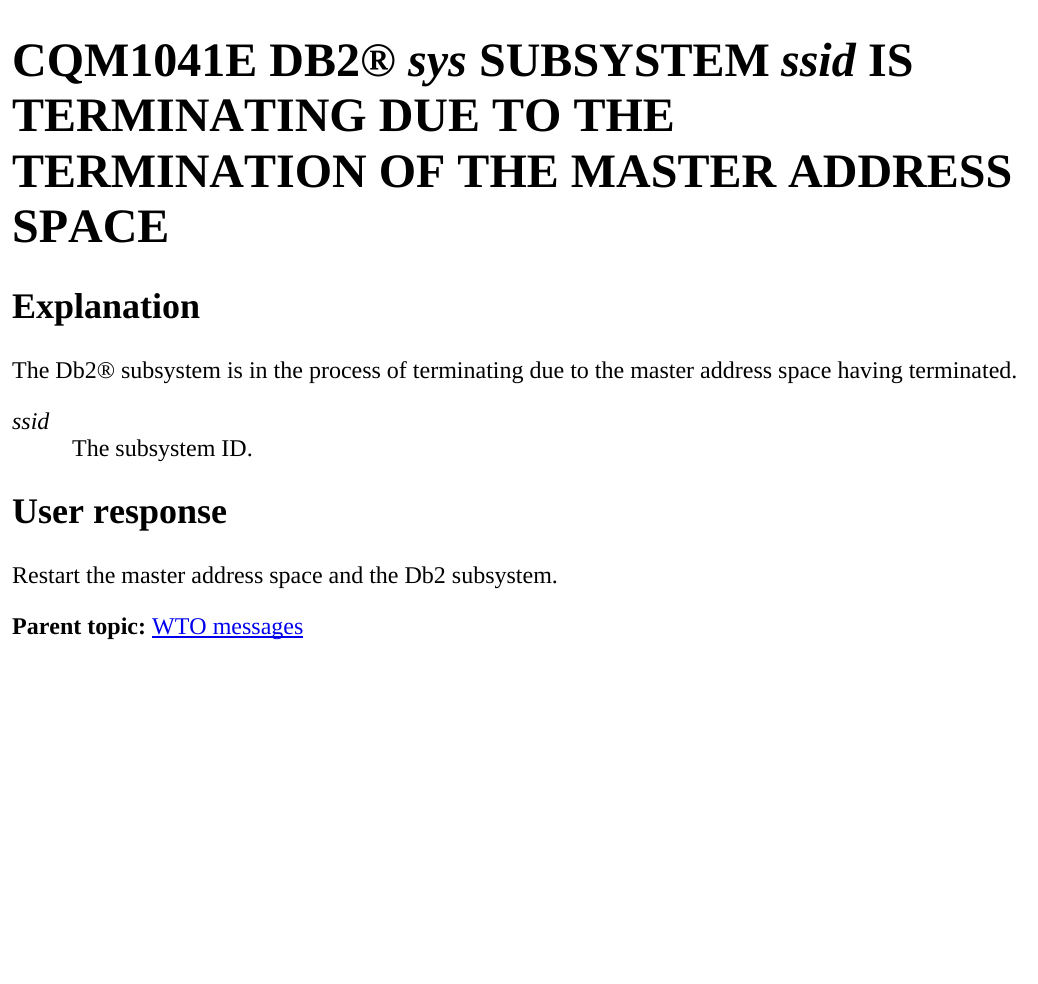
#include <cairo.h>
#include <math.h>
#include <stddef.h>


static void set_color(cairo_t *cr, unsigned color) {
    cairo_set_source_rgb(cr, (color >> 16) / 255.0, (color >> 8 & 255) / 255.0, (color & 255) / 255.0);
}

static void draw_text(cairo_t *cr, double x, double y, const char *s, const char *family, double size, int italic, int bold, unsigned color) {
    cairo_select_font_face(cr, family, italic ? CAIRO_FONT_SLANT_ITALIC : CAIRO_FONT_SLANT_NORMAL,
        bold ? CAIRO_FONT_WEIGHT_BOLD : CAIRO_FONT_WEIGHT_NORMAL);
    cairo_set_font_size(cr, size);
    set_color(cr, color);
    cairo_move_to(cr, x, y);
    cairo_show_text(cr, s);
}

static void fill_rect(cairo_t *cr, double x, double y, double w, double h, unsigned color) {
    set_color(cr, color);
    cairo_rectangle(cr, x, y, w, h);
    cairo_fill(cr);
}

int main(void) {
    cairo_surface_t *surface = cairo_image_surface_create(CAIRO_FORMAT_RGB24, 1038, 984);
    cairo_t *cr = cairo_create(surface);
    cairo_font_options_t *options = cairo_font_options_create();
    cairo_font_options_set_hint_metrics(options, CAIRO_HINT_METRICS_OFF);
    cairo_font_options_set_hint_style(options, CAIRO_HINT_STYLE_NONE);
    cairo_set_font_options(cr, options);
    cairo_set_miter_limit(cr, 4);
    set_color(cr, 0xFFFFFF);
    cairo_paint(cr);
    draw_text(cr, 12, 76, "CQM1041E DB2®", "Liberation Serif", 48, 0, 1, 0x000000);
    draw_text(cr, 408, 76, "sys", "Liberation Serif", 48, 1, 1, 0x000000);
    draw_text(cr, 479, 76, "SUBSYSTEM", "Liberation Serif", 48, 0, 1, 0x000000);
    draw_text(cr, 781, 76, "ssid", "Liberation Serif", 48, 1, 1, 0x000000);
    draw_text(cr, 868, 76, "IS", "Liberation Serif", 48, 0, 1, 0x000000);
    draw_text(cr, 12, 131, "TERMINATING DUE TO THE", "Liberation Serif", 48, 0, 1, 0x000000);
    draw_text(cr, 12, 187, "TERMINATION OF THE MASTER ADDRESS", "Liberation Serif", 48, 0, 1, 0x000000);
    draw_text(cr, 12, 242, "SPACE", "Liberation Serif", 48, 0, 1, 0x000000);
    draw_text(cr, 12, 318, "Explanation", "Liberation Serif", 36, 0, 1, 0x000000);
    draw_text(cr, 12, 378, "The Db2® subsystem is in the process of terminating due to the master address space having terminated.", "Liberation Serif", 24, 0, 0, 0x000000);
    draw_text(cr, 12, 429, "ssid", "Liberation Serif", 24, 1, 0, 0x000000);
    draw_text(cr, 72, 456, "The subsystem ID.", "Liberation Serif", 24, 0, 0, 0x000000);
    draw_text(cr, 12, 523, "User response", "Liberation Serif", 36, 0, 1, 0x000000);
    draw_text(cr, 12, 583, "Restart the master address space and the Db2 subsystem.", "Liberation Serif", 24, 0, 0, 0x000000);
    draw_text(cr, 12, 634, "Parent topic:", "Liberation Serif", 24, 0, 1, 0x000000);
    fill_rect(cr, 152, 636, 151, 2, 0x0000EE);
    draw_text(cr, 152, 634, "WTO messages", "Liberation Serif", 24, 0, 0, 0x0000EE);
    cairo_surface_write_to_png(surface, "output.png");
    cairo_font_options_destroy(options);
    cairo_destroy(cr);
    cairo_surface_destroy(surface);
    return 0;
}
